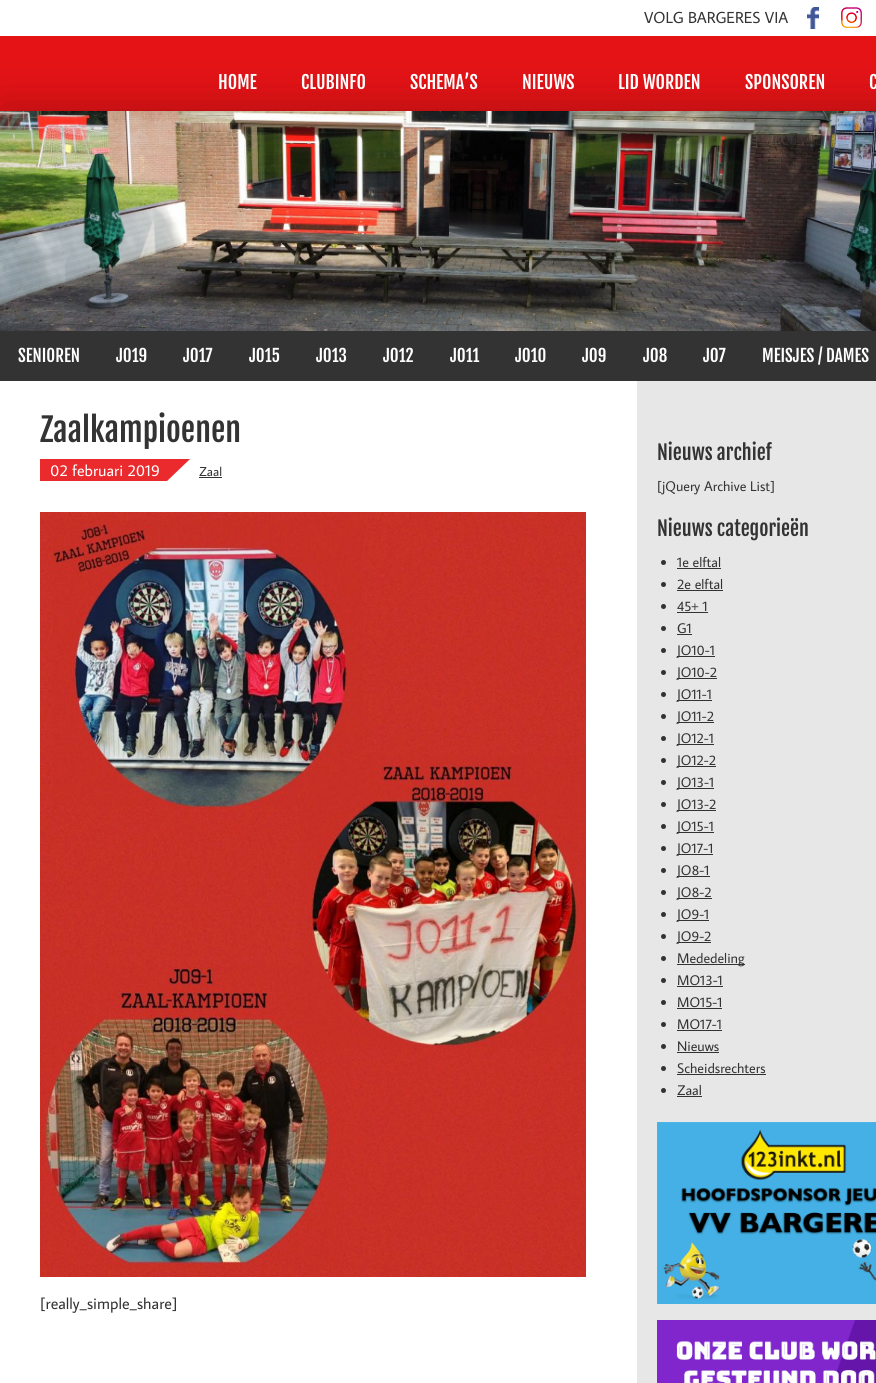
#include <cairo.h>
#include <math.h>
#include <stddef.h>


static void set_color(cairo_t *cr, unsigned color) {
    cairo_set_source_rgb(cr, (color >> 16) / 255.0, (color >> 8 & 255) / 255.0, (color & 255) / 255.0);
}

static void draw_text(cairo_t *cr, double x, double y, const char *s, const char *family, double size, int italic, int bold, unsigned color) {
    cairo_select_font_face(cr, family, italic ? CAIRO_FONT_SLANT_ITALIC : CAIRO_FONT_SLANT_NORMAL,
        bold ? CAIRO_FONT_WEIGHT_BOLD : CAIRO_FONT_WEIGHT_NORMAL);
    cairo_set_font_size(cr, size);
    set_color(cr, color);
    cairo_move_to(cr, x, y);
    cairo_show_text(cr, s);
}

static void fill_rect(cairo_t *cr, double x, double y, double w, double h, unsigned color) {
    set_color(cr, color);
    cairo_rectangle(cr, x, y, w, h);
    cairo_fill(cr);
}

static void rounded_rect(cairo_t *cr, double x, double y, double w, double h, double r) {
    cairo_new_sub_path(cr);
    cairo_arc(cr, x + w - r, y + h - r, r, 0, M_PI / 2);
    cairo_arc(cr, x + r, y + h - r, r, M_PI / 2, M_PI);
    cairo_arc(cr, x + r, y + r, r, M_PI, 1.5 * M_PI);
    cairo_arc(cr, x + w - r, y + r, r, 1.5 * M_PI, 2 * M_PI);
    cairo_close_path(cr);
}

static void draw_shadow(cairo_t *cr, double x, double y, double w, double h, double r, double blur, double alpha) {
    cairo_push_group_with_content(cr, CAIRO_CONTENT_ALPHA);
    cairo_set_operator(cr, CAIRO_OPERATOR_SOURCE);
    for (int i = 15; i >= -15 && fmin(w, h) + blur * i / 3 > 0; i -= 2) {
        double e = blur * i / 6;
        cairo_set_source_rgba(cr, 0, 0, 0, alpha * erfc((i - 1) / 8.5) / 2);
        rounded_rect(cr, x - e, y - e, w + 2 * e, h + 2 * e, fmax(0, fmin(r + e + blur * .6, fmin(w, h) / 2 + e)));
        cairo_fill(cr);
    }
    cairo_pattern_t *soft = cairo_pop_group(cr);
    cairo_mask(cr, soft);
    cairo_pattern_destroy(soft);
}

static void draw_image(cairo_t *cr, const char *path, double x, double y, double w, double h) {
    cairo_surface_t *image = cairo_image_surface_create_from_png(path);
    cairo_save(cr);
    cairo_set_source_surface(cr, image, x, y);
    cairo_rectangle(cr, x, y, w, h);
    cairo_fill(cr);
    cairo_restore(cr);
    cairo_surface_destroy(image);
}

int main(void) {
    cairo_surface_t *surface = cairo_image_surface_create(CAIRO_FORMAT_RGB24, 876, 1383);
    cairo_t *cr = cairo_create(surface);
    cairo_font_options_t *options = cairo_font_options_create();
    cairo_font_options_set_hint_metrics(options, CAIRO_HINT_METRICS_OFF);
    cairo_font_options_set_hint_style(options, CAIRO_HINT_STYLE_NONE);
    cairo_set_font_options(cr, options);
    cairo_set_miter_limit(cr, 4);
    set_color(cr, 0xFFFFFF);
    cairo_paint(cr);
    draw_text(cr, 644, 23, "VOLG BARGERES VIA", "Average Sans", 16, 0, 0, 0x333333);
    draw_image(cr, "assets/img1.png", 807, 7, 12, 22);
    draw_image(cr, "assets/img2.png", 841, 7, 21, 21);
    fill_rect(cr, 0, 36, 876, 75, 0xE51316);
    set_color(cr, 0x000000);
    draw_shadow(cr, 2, 113, 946, 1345, 0, 25, 0.3);
    draw_text(cr, 218, 89, "HOME", "Fjalla One", 18, 0, 0, 0xFFFFFF);
    draw_text(cr, 301, 89, "CLUBINFO", "Fjalla One", 18, 0, 0, 0xFFFFFF);
    draw_text(cr, 410, 89, "SCHEMA’S", "Fjalla One", 18, 0, 0, 0xFFFFFF);
    draw_text(cr, 522, 89, "NIEUWS", "Fjalla One", 18, 0, 0, 0xFFFFFF);
    draw_text(cr, 618, 89, "LID WORDEN", "Fjalla One", 18, 0, 0, 0xFFFFFF);
    draw_text(cr, 745, 89, "SPONSOREN", "Fjalla One", 18, 0, 0, 0xFFFFFF);
    draw_text(cr, 869, 89, "C", "Fjalla One", 18, 0, 0, 0xFFFFFF);
    draw_image(cr, "assets/img3.png", 0, 111, 876, 220);
    fill_rect(cr, 0, 331, 876, 50, 0x333333);
    draw_text(cr, 18, 362, "SENIOREN", "Fjalla One", 17, 0, 0, 0xFFFFFF);
    draw_text(cr, 116, 362, "JO19", "Fjalla One", 17, 0, 0, 0xFFFFFF);
    draw_text(cr, 183, 362, "JO17", "Fjalla One", 17, 0, 0, 0xFFFFFF);
    draw_text(cr, 249, 362, "JO15", "Fjalla One", 17, 0, 0, 0xFFFFFF);
    draw_text(cr, 316, 362, "JO13", "Fjalla One", 17, 0, 0, 0xFFFFFF);
    draw_text(cr, 383, 362, "JO12", "Fjalla One", 17, 0, 0, 0xFFFFFF);
    draw_text(cr, 450, 362, "JO11", "Fjalla One", 17, 0, 0, 0xFFFFFF);
    draw_text(cr, 515, 362, "JO10", "Fjalla One", 17, 0, 0, 0xFFFFFF);
    draw_text(cr, 582, 362, "JO9", "Fjalla One", 17, 0, 0, 0xFFFFFF);
    draw_text(cr, 643, 362, "JO8", "Fjalla One", 17, 0, 0, 0xFFFFFF);
    draw_text(cr, 703, 362, "JO7", "Fjalla One", 17, 0, 0, 0xFFFFFF);
    draw_text(cr, 762, 362, "MEISJES / DAMES", "Fjalla One", 17, 0, 0, 0xFFFFFF);
    fill_rect(cr, 0, 381, 637, 1002, 0xFFFFFF);
    draw_text(cr, 40, 442, "Zaalkampioenen", "Fjalla One", 32, 0, 0, 0x333333);
    fill_rect(cr, 40, 459, 127, 22, 0xEB2A2E);
    draw_text(cr, 50, 476, "02 februari 2019", "Average Sans", 16, 0, 0, 0xFFFFFF);
    draw_image(cr, "assets/img4.png", 167, 459, 23, 22);
    draw_text(cr, 199, 476, "Zaal", "Average Sans", 13, 0, 0, 0x333333);
    fill_rect(cr, 199, 477, 23, 1, 0x333333);
    draw_image(cr, "assets/img5.png", 40, 512, 546, 765);
    draw_text(cr, 40, 1309, "[really_simple_share]", "Average Sans", 16, 0, 0, 0x333333);
    fill_rect(cr, 637, 381, 239, 1002, 0xE7E7E7);
    draw_text(cr, 657, 460, "Nieuws archief", "Fjalla One", 20, 0, 0, 0x333333);
    draw_text(cr, 657, 491, "[jQuery Archive List]", "Average Sans", 14, 0, 0, 0x333333);
    draw_text(cr, 657, 536, "Nieuws categorieën", "Fjalla One", 20, 0, 0, 0x333333);
    cairo_new_path(cr);
    cairo_arc(cr, 663.5, 562.5, 2.5, 0, 2 * M_PI);
    cairo_fill(cr);
    draw_text(cr, 677, 567, "1e elftal", "Average Sans", 14, 0, 0, 0x333333);
    fill_rect(cr, 677, 568, 44, 1, 0x333333);
    cairo_new_path(cr);
    cairo_arc(cr, 663.5, 584.5, 2.5, 0, 2 * M_PI);
    cairo_fill(cr);
    draw_text(cr, 677, 589, "2e elftal", "Average Sans", 14, 0, 0, 0x333333);
    fill_rect(cr, 677, 590, 46, 1, 0x333333);
    cairo_new_path(cr);
    cairo_arc(cr, 663.5, 606.5, 2.5, 0, 2 * M_PI);
    cairo_fill(cr);
    draw_text(cr, 677, 611, "45+ 1", "Average Sans", 14, 0, 0, 0x333333);
    fill_rect(cr, 677, 612, 31, 1, 0x333333);
    cairo_new_path(cr);
    cairo_arc(cr, 663.5, 628.5, 2.5, 0, 2 * M_PI);
    cairo_fill(cr);
    draw_text(cr, 677, 633, "G1", "Average Sans", 14, 0, 0, 0x333333);
    fill_rect(cr, 677, 634, 15, 1, 0x333333);
    cairo_new_path(cr);
    cairo_arc(cr, 663.5, 650.5, 2.5, 0, 2 * M_PI);
    cairo_fill(cr);
    fill_rect(cr, 677, 656, 38, 1, 0x333333);
    draw_text(cr, 677, 655, "JO10-1", "Average Sans", 14, 0, 0, 0x333333);
    cairo_new_path(cr);
    cairo_arc(cr, 663.5, 672.5, 2.5, 0, 2 * M_PI);
    cairo_fill(cr);
    fill_rect(cr, 677, 678, 40, 1, 0x333333);
    draw_text(cr, 677, 677, "JO10-2", "Average Sans", 14, 0, 0, 0x333333);
    cairo_new_path(cr);
    cairo_arc(cr, 663.5, 694.5, 2.5, 0, 2 * M_PI);
    cairo_fill(cr);
    fill_rect(cr, 677, 700, 35, 1, 0x333333);
    draw_text(cr, 677, 699, "JO11-1", "Average Sans", 14, 0, 0, 0x333333);
    cairo_new_path(cr);
    cairo_arc(cr, 663.5, 716.5, 2.5, 0, 2 * M_PI);
    cairo_fill(cr);
    fill_rect(cr, 677, 722, 37, 1, 0x333333);
    draw_text(cr, 677, 721, "JO11-2", "Average Sans", 14, 0, 0, 0x333333);
    cairo_new_path(cr);
    cairo_arc(cr, 663.5, 738.5, 2.5, 0, 2 * M_PI);
    cairo_fill(cr);
    fill_rect(cr, 677, 744, 37, 1, 0x333333);
    draw_text(cr, 677, 743, "JO12-1", "Average Sans", 14, 0, 0, 0x333333);
    cairo_new_path(cr);
    cairo_arc(cr, 663.5, 760.5, 2.5, 0, 2 * M_PI);
    cairo_fill(cr);
    fill_rect(cr, 677, 766, 39, 1, 0x333333);
    draw_text(cr, 677, 765, "JO12-2", "Average Sans", 14, 0, 0, 0x333333);
    cairo_new_path(cr);
    cairo_arc(cr, 663.5, 782.5, 2.5, 0, 2 * M_PI);
    cairo_fill(cr);
    fill_rect(cr, 677, 788, 37, 1, 0x333333);
    draw_text(cr, 677, 787, "JO13-1", "Average Sans", 14, 0, 0, 0x333333);
    cairo_new_path(cr);
    cairo_arc(cr, 663.5, 804.5, 2.5, 0, 2 * M_PI);
    cairo_fill(cr);
    fill_rect(cr, 677, 810, 39, 1, 0x333333);
    draw_text(cr, 677, 809, "JO13-2", "Average Sans", 14, 0, 0, 0x333333);
    cairo_new_path(cr);
    cairo_arc(cr, 663.5, 826.5, 2.5, 0, 2 * M_PI);
    cairo_fill(cr);
    fill_rect(cr, 677, 832, 37, 1, 0x333333);
    draw_text(cr, 677, 831, "JO15-1", "Average Sans", 14, 0, 0, 0x333333);
    cairo_new_path(cr);
    cairo_arc(cr, 663.5, 848.5, 2.5, 0, 2 * M_PI);
    cairo_fill(cr);
    fill_rect(cr, 677, 854, 36, 1, 0x333333);
    draw_text(cr, 677, 853, "JO17-1", "Average Sans", 14, 0, 0, 0x333333);
    cairo_new_path(cr);
    cairo_arc(cr, 663.5, 870.5, 2.5, 0, 2 * M_PI);
    cairo_fill(cr);
    fill_rect(cr, 677, 876, 33, 1, 0x333333);
    draw_text(cr, 677, 875, "JO8-1", "Average Sans", 14, 0, 0, 0x333333);
    cairo_new_path(cr);
    cairo_arc(cr, 663.5, 892.5, 2.5, 0, 2 * M_PI);
    cairo_fill(cr);
    fill_rect(cr, 677, 898, 35, 1, 0x333333);
    draw_text(cr, 677, 897, "JO8-2", "Average Sans", 14, 0, 0, 0x333333);
    cairo_new_path(cr);
    cairo_arc(cr, 663.5, 914.5, 2.5, 0, 2 * M_PI);
    cairo_fill(cr);
    fill_rect(cr, 677, 920, 32, 1, 0x333333);
    draw_text(cr, 677, 919, "JO9-1", "Average Sans", 14, 0, 0, 0x333333);
    cairo_new_path(cr);
    cairo_arc(cr, 663.5, 936.5, 2.5, 0, 2 * M_PI);
    cairo_fill(cr);
    fill_rect(cr, 677, 942, 34, 1, 0x333333);
    draw_text(cr, 677, 941, "JO9-2", "Average Sans", 14, 0, 0, 0x333333);
    cairo_new_path(cr);
    cairo_arc(cr, 663.5, 958.5, 2.5, 0, 2 * M_PI);
    cairo_fill(cr);
    fill_rect(cr, 677, 964, 68, 1, 0x333333);
    draw_text(cr, 677, 963, "Mededeling", "Average Sans", 14, 0, 0, 0x333333);
    cairo_new_path(cr);
    cairo_arc(cr, 663.5, 980.5, 2.5, 0, 2 * M_PI);
    cairo_fill(cr);
    draw_text(cr, 677, 985, "MO13-1", "Average Sans", 14, 0, 0, 0x333333);
    fill_rect(cr, 677, 986, 46, 1, 0x333333);
    cairo_new_path(cr);
    cairo_arc(cr, 663.5, 1002.5, 2.5, 0, 2 * M_PI);
    cairo_fill(cr);
    draw_text(cr, 677, 1007, "MO15-1", "Average Sans", 14, 0, 0, 0x333333);
    fill_rect(cr, 677, 1008, 45, 1, 0x333333);
    cairo_new_path(cr);
    cairo_arc(cr, 663.5, 1024.5, 2.5, 0, 2 * M_PI);
    cairo_fill(cr);
    draw_text(cr, 677, 1029, "MO17-1", "Average Sans", 14, 0, 0, 0x333333);
    fill_rect(cr, 677, 1030, 45, 1, 0x333333);
    cairo_new_path(cr);
    cairo_arc(cr, 663.5, 1046.5, 2.5, 0, 2 * M_PI);
    cairo_fill(cr);
    draw_text(cr, 677, 1051, "Nieuws", "Average Sans", 14, 0, 0, 0x333333);
    fill_rect(cr, 677, 1052, 42, 1, 0x333333);
    cairo_new_path(cr);
    cairo_arc(cr, 663.5, 1068.5, 2.5, 0, 2 * M_PI);
    cairo_fill(cr);
    draw_text(cr, 677, 1073, "Scheidsrechters", "Average Sans", 14, 0, 0, 0x333333);
    fill_rect(cr, 677, 1074, 89, 1, 0x333333);
    cairo_new_path(cr);
    cairo_arc(cr, 663.5, 1090.5, 2.5, 0, 2 * M_PI);
    cairo_fill(cr);
    draw_text(cr, 677, 1095, "Zaal", "Average Sans", 14, 0, 0, 0x333333);
    fill_rect(cr, 677, 1096, 25, 1, 0x333333);
    draw_image(cr, "assets/img6.png", 657, 1122, 219, 182);
    draw_image(cr, "assets/img7.png", 657, 1320, 219, 63);
    cairo_surface_write_to_png(surface, "output.png");
    cairo_font_options_destroy(options);
    cairo_destroy(cr);
    cairo_surface_destroy(surface);
    return 0;
}
